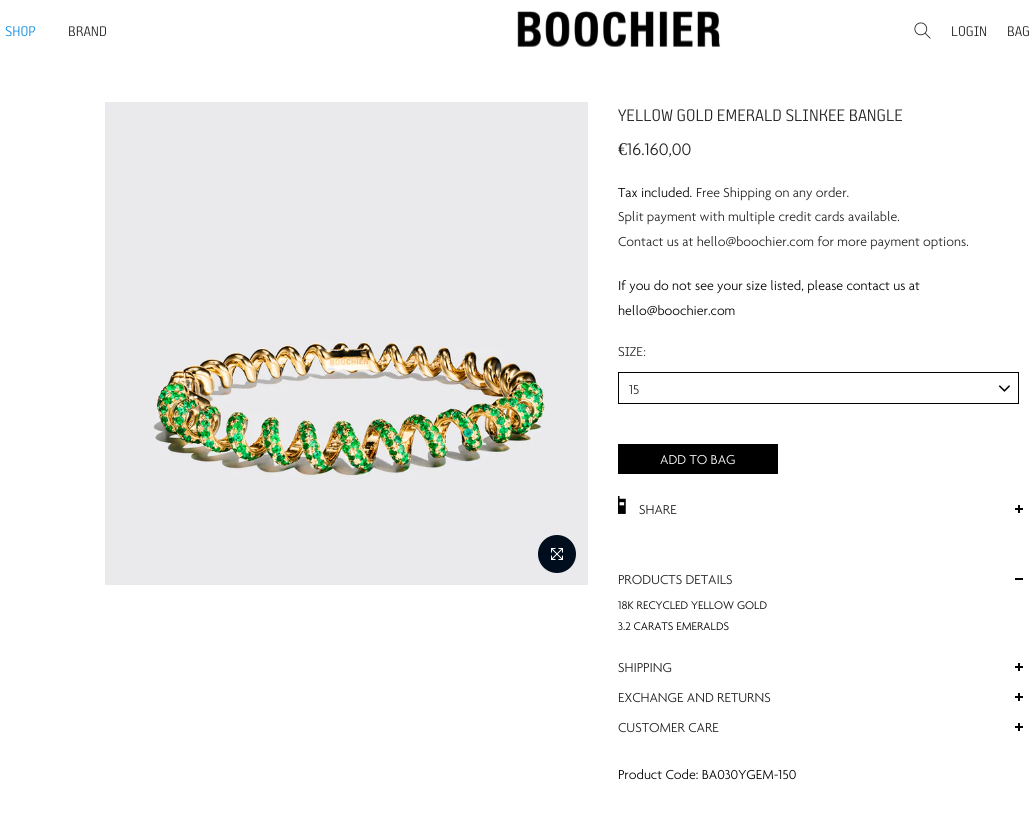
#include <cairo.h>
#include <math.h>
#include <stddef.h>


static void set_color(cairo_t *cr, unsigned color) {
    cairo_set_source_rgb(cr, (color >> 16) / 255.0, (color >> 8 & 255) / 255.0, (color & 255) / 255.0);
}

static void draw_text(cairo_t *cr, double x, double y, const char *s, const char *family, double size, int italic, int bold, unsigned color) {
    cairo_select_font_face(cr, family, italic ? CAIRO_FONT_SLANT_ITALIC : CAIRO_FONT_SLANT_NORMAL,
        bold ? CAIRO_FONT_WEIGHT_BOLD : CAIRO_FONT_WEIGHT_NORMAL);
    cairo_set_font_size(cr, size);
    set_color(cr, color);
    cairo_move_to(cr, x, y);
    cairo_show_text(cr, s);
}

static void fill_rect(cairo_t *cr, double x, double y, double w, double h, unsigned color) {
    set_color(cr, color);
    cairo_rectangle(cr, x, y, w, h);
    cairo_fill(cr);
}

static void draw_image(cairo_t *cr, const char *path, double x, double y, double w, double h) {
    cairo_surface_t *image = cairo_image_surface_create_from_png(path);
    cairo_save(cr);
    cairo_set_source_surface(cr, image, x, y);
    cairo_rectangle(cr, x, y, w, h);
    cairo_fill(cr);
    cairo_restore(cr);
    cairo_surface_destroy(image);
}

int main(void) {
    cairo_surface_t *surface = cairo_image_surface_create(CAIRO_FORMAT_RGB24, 1034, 815);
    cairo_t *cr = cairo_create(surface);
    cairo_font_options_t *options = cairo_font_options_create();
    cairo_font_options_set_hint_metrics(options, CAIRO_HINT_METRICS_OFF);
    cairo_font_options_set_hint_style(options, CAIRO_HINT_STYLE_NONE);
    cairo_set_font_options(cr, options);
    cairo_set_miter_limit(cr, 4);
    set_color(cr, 0xFFFFFF);
    cairo_paint(cr);
    draw_text(cr, 5, 36, "SHOP", "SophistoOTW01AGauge", 15, 0, 0, 0x0989E0);
    draw_text(cr, 68, 36, "BRAND", "SophistoOTW01AGauge", 15, 0, 0, 0x222222);
    draw_image(cr, "assets/img1.png", 517, 11, 204, 36);
    draw_image(cr, "assets/img2.png", 914, 22, 17, 17);
    draw_text(cr, 951, 36, "LOGIN", "SophistoOTW01AGauge", 15, 0, 0, 0x222222);
    draw_text(cr, 1007, 36, "BAG", "SophistoOTW01AGauge", 15, 0, 0, 0x222222);
    draw_image(cr, "assets/img3.png", 105, 102, 483, 483);
    set_color(cr, 0x000D1D);
    cairo_arc(cr, 557, 554, 19, 0, 2 * M_PI);
    cairo_fill(cr);
    draw_image(cr, "assets/img4.png", 551, 548, 12, 12);
    draw_text(cr, 618, 121, "YELLOW GOLD EMERALD SLINKEE BANGLE", "SophistoOTW01AGauge", 18, 0, 0, 0x222222);
    draw_text(cr, 618, 155, "€", "Liberation Serif", 18, 0, 0, 0x222222);
    draw_text(cr, 627, 155, "16.160,00", "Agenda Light", 18, 0, 0, 0x222222);
    draw_text(cr, 618, 197, "Tax included.", "Agenda Light", 14, 0, 0, 0x000000);
    draw_text(cr, 696, 197, "Free Shipping on any order.", "Agenda Light", 14, 0, 0, 0x222222);
    draw_text(cr, 618, 221, "Split payment with multiple credit cards available.", "Agenda Light", 14, 0, 0, 0x222222);
    draw_text(cr, 618, 246, "Contact us at hello@boochier.com for more payment options.", "Agenda Light", 14, 0, 0, 0x222222);
    draw_text(cr, 618, 290, "If you do not see your size listed, please contact us at", "Agenda Light", 14, 0, 0, 0x000000);
    draw_text(cr, 618, 315, "hello@boochier.com", "Agenda Light", 14, 0, 0, 0x000000);
    draw_text(cr, 618, 356, "SIZE:", "SophistoOTW01AGauge", 14, 0, 0, 0x222222);
    cairo_rectangle(cr, 618.5, 372.5, 400, 31);
    set_color(cr, 0x000000);
    cairo_set_line_width(cr, 1);
    cairo_stroke(cr);
    draw_text(cr, 629, 394, "15", "Agenda Light", 14, 0, 0, 0x222222);
    draw_image(cr, "assets/img5.png", 998, 385, 12, 7);
    fill_rect(cr, 618, 444, 160, 30, 0x000000);
    draw_text(cr, 660, 464, "ADD TO BAG", "Agenda Light", 14, 0, 0, 0xFFFFFF);
    draw_image(cr, "assets/img6.png", 618, 496, 8, 18);
    draw_text(cr, 639, 514, "SHARE", "Agenda Light", 14, 0, 0, 0x222222);
    fill_rect(cr, 1018, 505, 2, 8, 0x000000);
    fill_rect(cr, 1015, 508, 8, 2, 0x000000);
    draw_text(cr, 618, 584, "PRODUCTS DETAILS", "Agenda Light", 14, 0, 0, 0x222222);
    fill_rect(cr, 1015, 578, 8, 2, 0x000000);
    draw_text(cr, 618, 609, "18K RECYCLED YELLOW GOLD", "Agenda Light", 12, 0, 0, 0x000000);
    draw_text(cr, 618, 630, "3.2 CARATS EMERALDS", "Agenda Light", 12, 0, 0, 0x000000);
    draw_text(cr, 618, 672, "SHIPPING", "Agenda Light", 14, 0, 0, 0x222222);
    fill_rect(cr, 1018, 663, 2, 8, 0x000000);
    fill_rect(cr, 1015, 666, 8, 2, 0x000000);
    draw_text(cr, 618, 702, "EXCHANGE AND RETURNS", "Agenda Light", 14, 0, 0, 0x222222);
    fill_rect(cr, 1018, 693, 2, 8, 0x000000);
    fill_rect(cr, 1015, 696, 8, 2, 0x000000);
    draw_text(cr, 618, 732, "CUSTOMER CARE", "Agenda Light", 14, 0, 0, 0x222222);
    fill_rect(cr, 1018, 723, 2, 8, 0x000000);
    fill_rect(cr, 1015, 726, 8, 2, 0x000000);
    draw_text(cr, 618, 779, "Product Code: BA030YGEM-150", "Agenda Light", 14, 0, 0, 0x000000);
    cairo_surface_write_to_png(surface, "output.png");
    cairo_font_options_destroy(options);
    cairo_destroy(cr);
    cairo_surface_destroy(surface);
    return 0;
}
